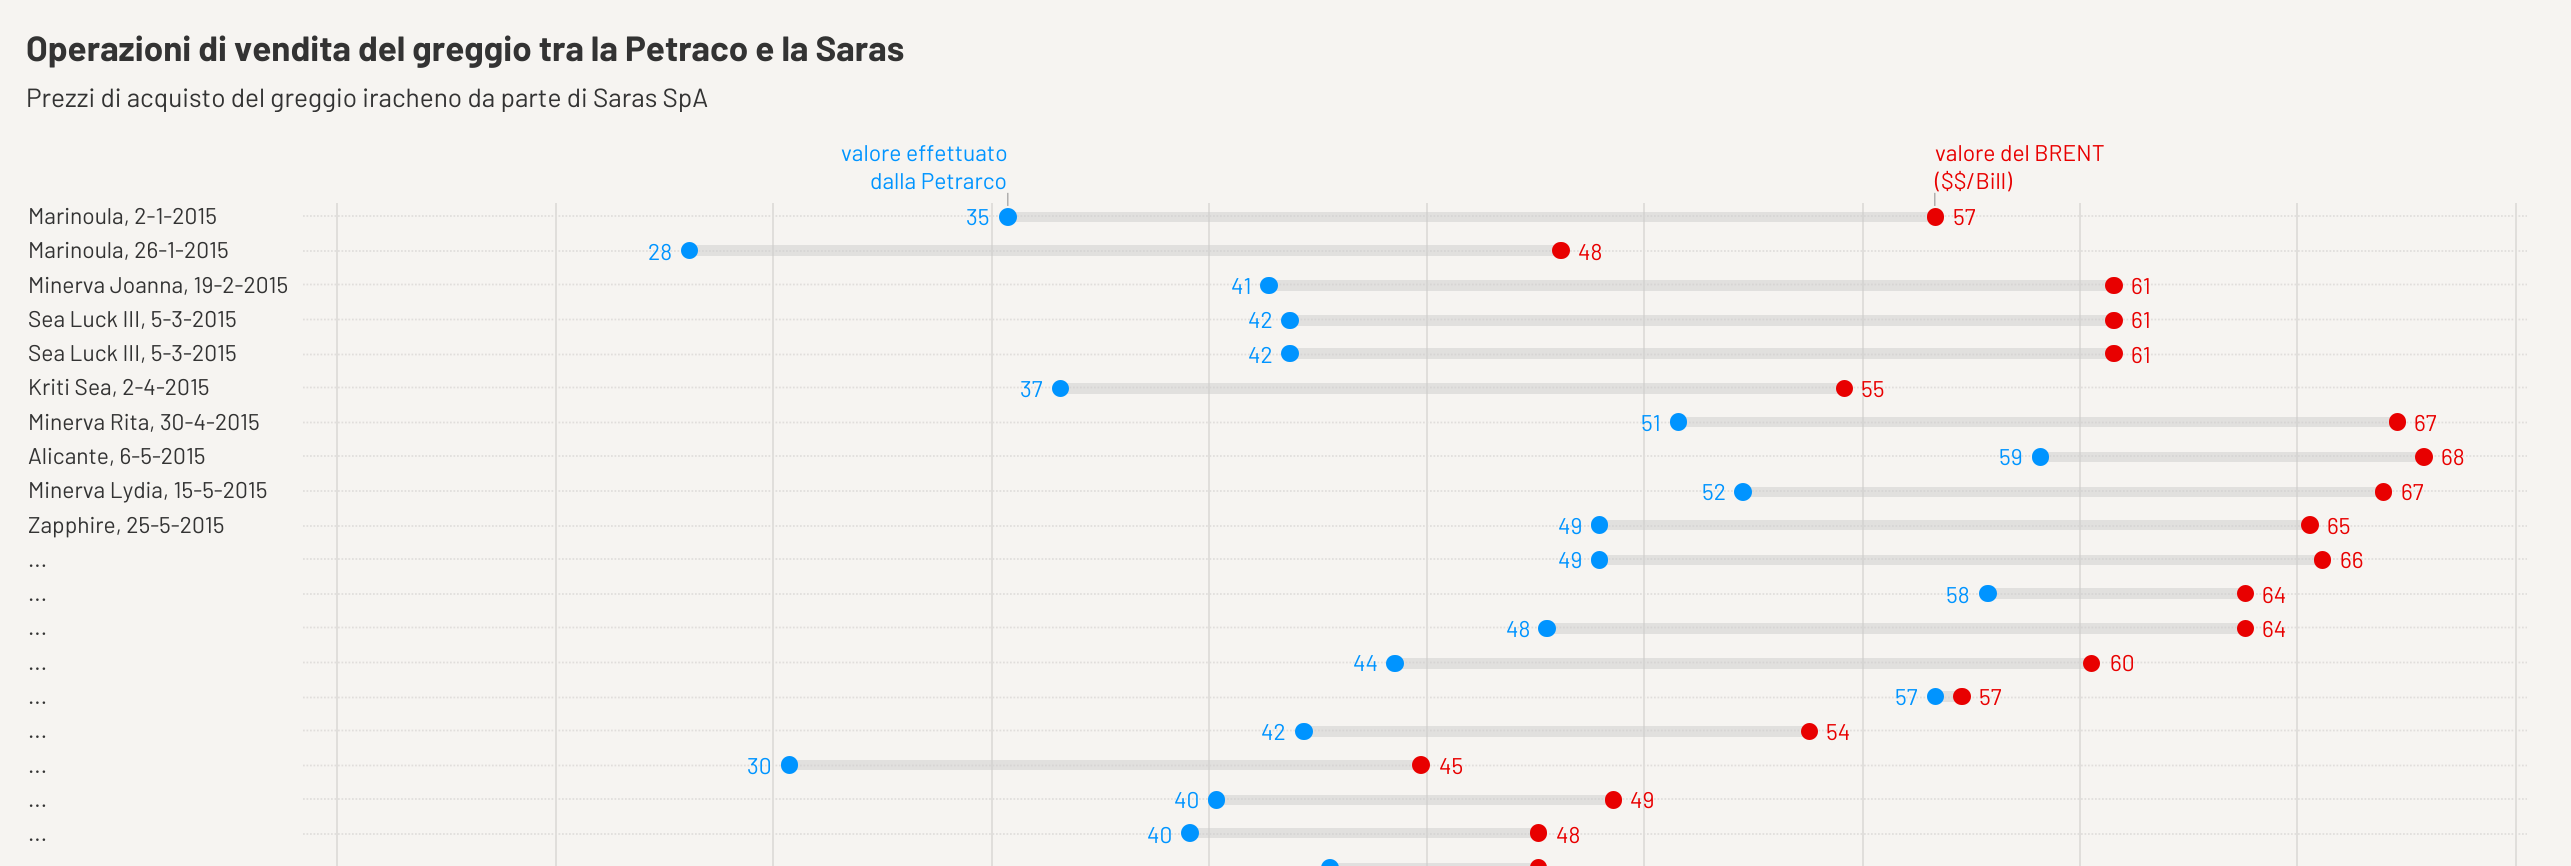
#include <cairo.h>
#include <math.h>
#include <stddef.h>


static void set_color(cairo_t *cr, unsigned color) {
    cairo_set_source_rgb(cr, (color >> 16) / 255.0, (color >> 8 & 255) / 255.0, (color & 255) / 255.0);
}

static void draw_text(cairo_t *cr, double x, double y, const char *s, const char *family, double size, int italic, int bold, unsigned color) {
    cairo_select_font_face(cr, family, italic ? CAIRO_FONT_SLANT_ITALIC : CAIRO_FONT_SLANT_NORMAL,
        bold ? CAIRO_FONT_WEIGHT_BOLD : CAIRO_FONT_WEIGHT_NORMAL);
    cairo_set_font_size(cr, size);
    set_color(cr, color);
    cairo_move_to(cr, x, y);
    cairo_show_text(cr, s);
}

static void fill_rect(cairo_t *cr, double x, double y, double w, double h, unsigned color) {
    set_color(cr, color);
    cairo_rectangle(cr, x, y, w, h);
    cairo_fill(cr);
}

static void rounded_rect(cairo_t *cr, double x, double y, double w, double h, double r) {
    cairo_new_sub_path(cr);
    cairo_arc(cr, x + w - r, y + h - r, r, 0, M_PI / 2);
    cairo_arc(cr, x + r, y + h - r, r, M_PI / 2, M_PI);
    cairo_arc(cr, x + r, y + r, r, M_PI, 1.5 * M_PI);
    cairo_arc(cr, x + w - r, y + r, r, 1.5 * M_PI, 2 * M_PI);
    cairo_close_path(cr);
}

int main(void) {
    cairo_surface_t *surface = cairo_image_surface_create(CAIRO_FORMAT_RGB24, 2571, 866);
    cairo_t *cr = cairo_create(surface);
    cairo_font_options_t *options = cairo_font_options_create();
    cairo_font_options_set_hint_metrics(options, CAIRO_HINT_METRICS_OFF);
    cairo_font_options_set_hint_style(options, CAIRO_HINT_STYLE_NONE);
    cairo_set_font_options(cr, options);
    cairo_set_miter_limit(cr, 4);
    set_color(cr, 0xF6F4F1);
    cairo_paint(cr);
    fill_rect(cr, 1330, 863, 208, 3, 0xE1E0DF);
    draw_text(cr, 26, 61, "Operazioni di vendita del greggio tra la Petraco e la Saras", "Barlow", 35, 0, 1, 0x333333);
    cairo_save(cr);
    cairo_rectangle(cr, 26, 26, 2520, 86);
    cairo_clip(cr);
    draw_text(cr, 26, 107, "Prezzi di acquisto del greggio iracheno da parte di Saras SpA", "Barlow", 26.25, 0, 0, 0x333333);
    cairo_restore(cr);
    draw_text(cr, 841, 161, "valore effettuato", "Barlow", 22.75, 0, 0, 0x0094FF);
    draw_text(cr, 870, 189, "dalla Petrarco", "Barlow", 22.75, 0, 0, 0x0094FF);
    draw_text(cr, 1006, 203, "|", "Liberation Sans", 14, 0, 0, 0x999999);
    draw_text(cr, 1935, 161, "valore del BRENT", "Barlow", 22.75, 0, 0, 0xE80000);
    draw_text(cr, 1935, 189, "($$/Bill)", "Barlow", 22.75, 0, 0, 0xE80000);
    draw_text(cr, 1933, 203, "|", "Liberation Sans", 14, 0, 0, 0x999999);
    cairo_new_path(cr);
    cairo_move_to(cr, 303, 216);
    cairo_line_to(cr, 2527, 216);
    set_color(cr, 0xE0DEDB);
    cairo_set_line_width(cr, 1.8);
    cairo_set_dash(cr, (double[]){1.75, 1.75}, 2, 0);
    cairo_stroke(cr);
    cairo_new_path(cr);
    cairo_move_to(cr, 303, 251);
    cairo_line_to(cr, 2527, 251);
    cairo_stroke(cr);
    cairo_new_path(cr);
    cairo_move_to(cr, 303, 284.5);
    cairo_line_to(cr, 2527, 284.5);
    cairo_stroke(cr);
    cairo_new_path(cr);
    cairo_move_to(cr, 303, 319.5);
    cairo_line_to(cr, 2527, 319.5);
    cairo_stroke(cr);
    cairo_new_path(cr);
    cairo_move_to(cr, 303, 354.5);
    cairo_line_to(cr, 2527, 354.5);
    cairo_stroke(cr);
    cairo_new_path(cr);
    cairo_move_to(cr, 303, 387.5);
    cairo_line_to(cr, 2527, 387.5);
    cairo_stroke(cr);
    cairo_new_path(cr);
    cairo_move_to(cr, 303, 422.5);
    cairo_line_to(cr, 2527, 422.5);
    cairo_stroke(cr);
    cairo_new_path(cr);
    cairo_move_to(cr, 303, 456);
    cairo_line_to(cr, 2527, 456);
    cairo_stroke(cr);
    cairo_new_path(cr);
    cairo_move_to(cr, 303, 491);
    cairo_line_to(cr, 2527, 491);
    cairo_stroke(cr);
    cairo_new_path(cr);
    cairo_move_to(cr, 303, 526);
    cairo_line_to(cr, 2527, 526);
    cairo_stroke(cr);
    cairo_new_path(cr);
    cairo_move_to(cr, 303, 559);
    cairo_line_to(cr, 2527, 559);
    cairo_stroke(cr);
    cairo_new_path(cr);
    cairo_move_to(cr, 303, 594);
    cairo_line_to(cr, 2527, 594);
    cairo_stroke(cr);
    cairo_new_path(cr);
    cairo_move_to(cr, 303, 627.5);
    cairo_line_to(cr, 2527, 627.5);
    cairo_stroke(cr);
    cairo_new_path(cr);
    cairo_move_to(cr, 303, 662.5);
    cairo_line_to(cr, 2527, 662.5);
    cairo_stroke(cr);
    cairo_new_path(cr);
    cairo_move_to(cr, 303, 697.5);
    cairo_line_to(cr, 2527, 697.5);
    cairo_stroke(cr);
    cairo_new_path(cr);
    cairo_move_to(cr, 303, 730.5);
    cairo_line_to(cr, 2527, 730.5);
    cairo_stroke(cr);
    cairo_new_path(cr);
    cairo_move_to(cr, 303, 765.5);
    cairo_line_to(cr, 2527, 765.5);
    cairo_stroke(cr);
    cairo_new_path(cr);
    cairo_move_to(cr, 303, 799);
    cairo_line_to(cr, 2527, 799);
    cairo_stroke(cr);
    cairo_new_path(cr);
    cairo_move_to(cr, 303, 834);
    cairo_line_to(cr, 2527, 834);
    cairo_stroke(cr);
    fill_rect(cr, 336, 203, 2, 663, 0xE0DEDB);
    fill_rect(cr, 555, 203, 2, 663, 0xE0DEDB);
    fill_rect(cr, 772, 203, 2, 663, 0xE0DEDB);
    fill_rect(cr, 991, 203, 2, 663, 0xE0DEDB);
    fill_rect(cr, 1208, 203, 2, 663, 0xE0DEDB);
    fill_rect(cr, 1426, 203, 2, 663, 0xE0DEDB);
    fill_rect(cr, 1426, 863, 2, 3, 0xD6D5D4);
    fill_rect(cr, 1643, 203, 2, 663, 0xE0DEDB);
    fill_rect(cr, 1862, 203, 2, 663, 0xE0DEDB);
    fill_rect(cr, 2079, 203, 2, 663, 0xE0DEDB);
    fill_rect(cr, 2296, 203, 2, 663, 0xE0DEDB);
    fill_rect(cr, 2515, 203, 2, 663, 0xE0DEDB);
    draw_text(cr, 28, 224, "Marinoula, 2-1-2015", "Barlow", 22.75, 0, 0, 0x333333);
    draw_text(cr, 966, 225, "35", "Barlow", 22.75, 0, 0, 0x0094FF);
    cairo_set_source_rgba(cr, 0.8, 0.8, 0.8, 0.5);
    cairo_rectangle(cr, 1015, 212, 914, 10);
    cairo_fill(cr);
    set_color(cr, 0x0094FF);
    cairo_arc(cr, 1008, 217, 9, 0, 2 * M_PI);
    cairo_fill(cr);
    set_color(cr, 0xE80000);
    rounded_rect(cr, 1927, 208, 17, 18, 8.5);
    cairo_fill(cr);
    draw_text(cr, 1953, 225, "57", "Barlow", 22.75, 0, 0, 0xE80000);
    draw_text(cr, 28, 258, "Marinoula, 26-1-2015", "Barlow", 22.75, 0, 0, 0x333333);
    draw_text(cr, 648, 260, "28", "Barlow", 22.75, 0, 0, 0x0094FF);
    cairo_set_source_rgba(cr, 0.8, 0.8, 0.8, 0.5);
    cairo_rectangle(cr, 696, 245, 858, 11);
    cairo_fill(cr);
    set_color(cr, 0x0094FF);
    cairo_arc(cr, 689.5, 250.5, 8.5, 0, 2 * M_PI);
    cairo_fill(cr);
    set_color(cr, 0xE80000);
    rounded_rect(cr, 1552, 242, 18, 17, 8.5);
    cairo_fill(cr);
    draw_text(cr, 1578, 260, "48", "Barlow", 22.75, 0, 0, 0xE80000);
    draw_text(cr, 28, 293, "Minerva Joanna, 19-2-2015", "Barlow", 22.75, 0, 0, 0x333333);
    draw_text(cr, 1231, 294, "41", "Barlow", 22.75, 0, 0, 0x0094FF);
    cairo_set_source_rgba(cr, 0.8, 0.8, 0.8, 0.5);
    cairo_rectangle(cr, 1276, 280, 831, 11);
    cairo_fill(cr);
    set_color(cr, 0x0094FF);
    rounded_rect(cr, 1260, 277, 18, 17, 8.5);
    cairo_fill(cr);
    set_color(cr, 0xE80000);
    rounded_rect(cr, 2105, 277, 18, 17, 8.5);
    cairo_fill(cr);
    draw_text(cr, 2131, 294, "61", "Barlow", 22.75, 0, 0, 0xE80000);
    draw_text(cr, 28, 327, "Sea Luck III, 5-3-2015", "Barlow", 22.75, 0, 0, 0x333333);
    draw_text(cr, 1248, 328, "42", "Barlow", 22.75, 0, 0, 0x0094FF);
    cairo_set_source_rgba(cr, 0.8, 0.8, 0.8, 0.5);
    cairo_rectangle(cr, 1297, 315, 810, 11);
    cairo_fill(cr);
    set_color(cr, 0x0094FF);
    rounded_rect(cr, 1281, 312, 18, 17, 8.5);
    cairo_fill(cr);
    set_color(cr, 0xE80000);
    rounded_rect(cr, 2105, 312, 18, 17, 8.5);
    cairo_fill(cr);
    draw_text(cr, 2131, 328, "61", "Barlow", 22.75, 0, 0, 0xE80000);
    draw_text(cr, 28, 361, "Sea Luck III, 5-3-2015", "Barlow", 22.75, 0, 0, 0x333333);
    draw_text(cr, 1248, 363, "42", "Barlow", 22.75, 0, 0, 0x0094FF);
    cairo_set_source_rgba(cr, 0.8, 0.8, 0.8, 0.5);
    cairo_rectangle(cr, 1297, 348, 810, 11);
    cairo_fill(cr);
    set_color(cr, 0x0094FF);
    rounded_rect(cr, 1281, 345, 18, 17, 8.5);
    cairo_fill(cr);
    set_color(cr, 0xE80000);
    rounded_rect(cr, 2105, 345, 18, 17, 8.5);
    cairo_fill(cr);
    draw_text(cr, 2131, 363, "61", "Barlow", 22.75, 0, 0, 0xE80000);
    draw_text(cr, 28, 395, "Kriti Sea, 2-4-2015", "Barlow", 22.75, 0, 0, 0x333333);
    draw_text(cr, 1020, 397, "37", "Barlow", 22.75, 0, 0, 0x0094FF);
    cairo_set_source_rgba(cr, 0.8, 0.8, 0.8, 0.5);
    cairo_rectangle(cr, 1067, 383, 771, 11);
    cairo_fill(cr);
    set_color(cr, 0x0094FF);
    cairo_arc(cr, 1060.5, 388.5, 8.5, 0, 2 * M_PI);
    cairo_fill(cr);
    set_color(cr, 0xE80000);
    cairo_arc(cr, 1844.5, 388.5, 8.5, 0, 2 * M_PI);
    cairo_fill(cr);
    draw_text(cr, 1861, 397, "55", "Barlow", 22.75, 0, 0, 0xE80000);
    draw_text(cr, 28, 430, "Minerva Rita, 30-4-2015", "Barlow", 22.75, 0, 0, 0x333333);
    draw_text(cr, 1641, 431, "51", "Barlow", 22.75, 0, 0, 0x0094FF);
    cairo_set_source_rgba(cr, 0.8, 0.8, 0.8, 0.5);
    cairo_rectangle(cr, 1685, 417, 706, 10);
    cairo_fill(cr);
    set_color(cr, 0x0094FF);
    rounded_rect(cr, 1670, 413, 17, 18, 8.5);
    cairo_fill(cr);
    set_color(cr, 0xE80000);
    rounded_rect(cr, 2389, 413, 17, 18, 8.5);
    cairo_fill(cr);
    draw_text(cr, 2414, 431, "67", "Barlow", 22.75, 0, 0, 0xE80000);
    draw_text(cr, 28, 464, "Alicante, 6-5-2015", "Barlow", 22.75, 0, 0, 0x333333);
    draw_text(cr, 1999, 465, "59", "Barlow", 22.75, 0, 0, 0x0094FF);
    cairo_set_source_rgba(cr, 0.8, 0.8, 0.8, 0.5);
    cairo_rectangle(cr, 2047, 452, 370, 10);
    cairo_fill(cr);
    set_color(cr, 0x0094FF);
    rounded_rect(cr, 2032, 448, 17, 18, 8.5);
    cairo_fill(cr);
    set_color(cr, 0xE80000);
    cairo_arc(cr, 2424, 457, 9, 0, 2 * M_PI);
    cairo_fill(cr);
    draw_text(cr, 2441, 465, "68", "Barlow", 22.75, 0, 0, 0xE80000);
    draw_text(cr, 28, 498, "Minerva Lydia, 15-5-2015", "Barlow", 22.75, 0, 0, 0x333333);
    draw_text(cr, 1702, 500, "52", "Barlow", 22.75, 0, 0, 0x0094FF);
    cairo_set_source_rgba(cr, 0.8, 0.8, 0.8, 0.5);
    cairo_rectangle(cr, 1750, 487, 627, 10);
    cairo_fill(cr);
    set_color(cr, 0x0094FF);
    cairo_arc(cr, 1743, 492, 9, 0, 2 * M_PI);
    cairo_fill(cr);
    set_color(cr, 0xE80000);
    rounded_rect(cr, 2375, 483, 17, 18, 8.5);
    cairo_fill(cr);
    draw_text(cr, 2401, 500, "67", "Barlow", 22.75, 0, 0, 0xE80000);
    draw_text(cr, 28, 533, "Zapphire, 25-5-2015", "Barlow", 22.75, 0, 0, 0x333333);
    draw_text(cr, 1558, 534, "49", "Barlow", 22.75, 0, 0, 0x0094FF);
    cairo_set_source_rgba(cr, 0.8, 0.8, 0.8, 0.5);
    cairo_rectangle(cr, 1606, 520, 697, 10);
    cairo_fill(cr);
    set_color(cr, 0x0094FF);
    rounded_rect(cr, 1591, 516, 17, 18, 8.5);
    cairo_fill(cr);
    set_color(cr, 0xE80000);
    cairo_arc(cr, 2310, 525, 9, 0, 2 * M_PI);
    cairo_fill(cr);
    draw_text(cr, 2327, 534, "65", "Barlow", 22.75, 0, 0, 0xE80000);
    draw_text(cr, 28, 567, "...", "Barlow", 22.75, 0, 0, 0x333333);
    draw_text(cr, 1558, 568, "49", "Barlow", 22.75, 0, 0, 0x0094FF);
    cairo_set_source_rgba(cr, 0.8, 0.8, 0.8, 0.5);
    cairo_rectangle(cr, 1606, 555, 710, 10);
    cairo_fill(cr);
    set_color(cr, 0x0094FF);
    rounded_rect(cr, 1591, 551, 17, 18, 8.5);
    cairo_fill(cr);
    set_color(cr, 0xE80000);
    rounded_rect(cr, 2314, 551, 17, 18, 8.5);
    cairo_fill(cr);
    draw_text(cr, 2340, 568, "66", "Barlow", 22.75, 0, 0, 0xE80000);
    draw_text(cr, 28, 601, "...", "Barlow", 22.75, 0, 0, 0x333333);
    draw_text(cr, 1946, 603, "58", "Barlow", 22.75, 0, 0, 0x0094FF);
    cairo_set_source_rgba(cr, 0.8, 0.8, 0.8, 0.5);
    cairo_rectangle(cr, 1995, 588, 244, 11);
    cairo_fill(cr);
    set_color(cr, 0x0094FF);
    rounded_rect(cr, 1979, 585, 18, 17, 8.5);
    cairo_fill(cr);
    set_color(cr, 0xE80000);
    cairo_arc(cr, 2245.5, 593.5, 8.5, 0, 2 * M_PI);
    cairo_fill(cr);
    draw_text(cr, 2262, 603, "64", "Barlow", 22.75, 0, 0, 0xE80000);
    draw_text(cr, 28, 635, "...", "Barlow", 22.75, 0, 0, 0x333333);
    draw_text(cr, 1506, 637, "48", "Barlow", 22.75, 0, 0, 0x0094FF);
    cairo_set_source_rgba(cr, 0.8, 0.8, 0.8, 0.5);
    cairo_rectangle(cr, 1554, 623, 685, 11);
    cairo_fill(cr);
    set_color(cr, 0x0094FF);
    rounded_rect(cr, 1538, 620, 18, 17, 8.5);
    cairo_fill(cr);
    set_color(cr, 0xE80000);
    cairo_arc(cr, 2245.5, 628.5, 8.5, 0, 2 * M_PI);
    cairo_fill(cr);
    draw_text(cr, 2262, 637, "64", "Barlow", 22.75, 0, 0, 0xE80000);
    draw_text(cr, 28, 670, "...", "Barlow", 22.75, 0, 0, 0x333333);
    draw_text(cr, 1353, 671, "44", "Barlow", 22.75, 0, 0, 0x0094FF);
    cairo_set_source_rgba(cr, 0.8, 0.8, 0.8, 0.5);
    cairo_rectangle(cr, 1402, 658, 683, 11);
    cairo_fill(cr);
    set_color(cr, 0x0094FF);
    rounded_rect(cr, 1386, 655, 18, 17, 8.5);
    cairo_fill(cr);
    set_color(cr, 0xE80000);
    cairo_arc(cr, 2091.5, 663.5, 8.5, 0, 2 * M_PI);
    cairo_fill(cr);
    draw_text(cr, 2110, 671, "60", "Barlow", 22.75, 0, 0, 0xE80000);
    draw_text(cr, 28, 704, "...", "Barlow", 22.75, 0, 0, 0x333333);
    draw_text(cr, 1895, 705, "57", "Barlow", 22.75, 0, 0, 0x0094FF);
    cairo_set_source_rgba(cr, 0.8, 0.8, 0.8, 0.5);
    cairo_rectangle(cr, 1942, 691, 13, 11);
    cairo_fill(cr);
    set_color(cr, 0x0094FF);
    cairo_arc(cr, 1935.5, 696.5, 8.5, 0, 2 * M_PI);
    cairo_fill(cr);
    set_color(cr, 0xE80000);
    rounded_rect(cr, 1953, 688, 18, 17, 8.5);
    cairo_fill(cr);
    draw_text(cr, 1979, 705, "57", "Barlow", 22.75, 0, 0, 0xE80000);
    draw_text(cr, 28, 738, "...", "Barlow", 22.75, 0, 0, 0x333333);
    draw_text(cr, 1261, 740, "42", "Barlow", 22.75, 0, 0, 0x0094FF);
    cairo_set_source_rgba(cr, 0.8, 0.8, 0.8, 0.5);
    cairo_rectangle(cr, 1311, 726, 492, 11);
    cairo_fill(cr);
    set_color(cr, 0x0094FF);
    rounded_rect(cr, 1295, 723, 18, 17, 8.5);
    cairo_fill(cr);
    set_color(cr, 0xE80000);
    cairo_arc(cr, 1809.5, 731.5, 8.5, 0, 2 * M_PI);
    cairo_fill(cr);
    draw_text(cr, 1826, 740, "54", "Barlow", 22.75, 0, 0, 0xE80000);
    draw_text(cr, 28, 773, "...", "Barlow", 22.75, 0, 0, 0x333333);
    draw_text(cr, 747, 774, "30", "Barlow", 22.75, 0, 0, 0x0094FF);
    cairo_set_source_rgba(cr, 0.8, 0.8, 0.8, 0.5);
    cairo_rectangle(cr, 796, 760, 618, 10);
    cairo_fill(cr);
    set_color(cr, 0x0094FF);
    rounded_rect(cr, 781, 756, 17, 18, 8.5);
    cairo_fill(cr);
    set_color(cr, 0xE80000);
    cairo_arc(cr, 1421, 765, 9, 0, 2 * M_PI);
    cairo_fill(cr);
    draw_text(cr, 1439, 774, "45", "Barlow", 22.75, 0, 0, 0xE80000);
    draw_text(cr, 28, 807, "...", "Barlow", 22.75, 0, 0, 0x333333);
    draw_text(cr, 1174, 808, "40", "Barlow", 22.75, 0, 0, 0x0094FF);
    cairo_set_source_rgba(cr, 0.8, 0.8, 0.8, 0.5);
    cairo_rectangle(cr, 1223, 795, 384, 10);
    cairo_fill(cr);
    set_color(cr, 0x0094FF);
    rounded_rect(cr, 1208, 791, 17, 18, 8.5);
    cairo_fill(cr);
    set_color(cr, 0xE80000);
    rounded_rect(cr, 1605, 791, 17, 18, 8.5);
    cairo_fill(cr);
    draw_text(cr, 1630, 808, "49", "Barlow", 22.75, 0, 0, 0xE80000);
    draw_text(cr, 28, 841, "...", "Barlow", 22.75, 0, 0, 0x333333);
    draw_text(cr, 1147, 843, "40", "Barlow", 22.75, 0, 0, 0x0094FF);
    cairo_set_source_rgba(cr, 0.8, 0.8, 0.8, 0.5);
    cairo_rectangle(cr, 1197, 828, 335, 10);
    cairo_fill(cr);
    set_color(cr, 0x0094FF);
    cairo_arc(cr, 1190, 833, 9, 0, 2 * M_PI);
    cairo_fill(cr);
    set_color(cr, 0xE80000);
    rounded_rect(cr, 1530, 824, 17, 18, 8.5);
    cairo_fill(cr);
    draw_text(cr, 1556, 843, "48", "Barlow", 22.75, 0, 0, 0xE80000);
    set_color(cr, 0x0094FF);
    rounded_rect(cr, 1321, 859, 18, 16, 9);
    cairo_fill(cr);
    set_color(cr, 0xE80000);
    rounded_rect(cr, 1530, 859, 17, 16, 8.5);
    cairo_fill(cr);
    cairo_surface_write_to_png(surface, "output.png");
    cairo_font_options_destroy(options);
    cairo_destroy(cr);
    cairo_surface_destroy(surface);
    return 0;
}
